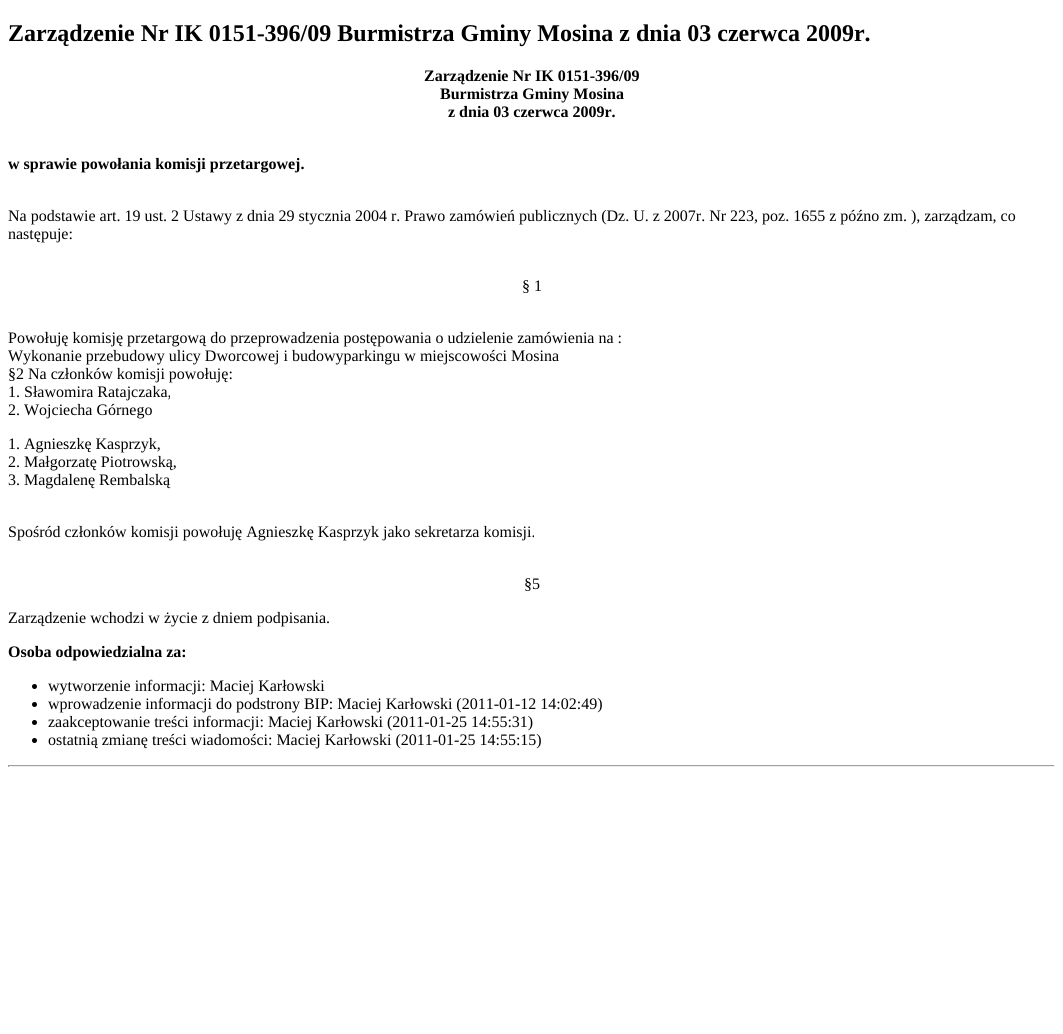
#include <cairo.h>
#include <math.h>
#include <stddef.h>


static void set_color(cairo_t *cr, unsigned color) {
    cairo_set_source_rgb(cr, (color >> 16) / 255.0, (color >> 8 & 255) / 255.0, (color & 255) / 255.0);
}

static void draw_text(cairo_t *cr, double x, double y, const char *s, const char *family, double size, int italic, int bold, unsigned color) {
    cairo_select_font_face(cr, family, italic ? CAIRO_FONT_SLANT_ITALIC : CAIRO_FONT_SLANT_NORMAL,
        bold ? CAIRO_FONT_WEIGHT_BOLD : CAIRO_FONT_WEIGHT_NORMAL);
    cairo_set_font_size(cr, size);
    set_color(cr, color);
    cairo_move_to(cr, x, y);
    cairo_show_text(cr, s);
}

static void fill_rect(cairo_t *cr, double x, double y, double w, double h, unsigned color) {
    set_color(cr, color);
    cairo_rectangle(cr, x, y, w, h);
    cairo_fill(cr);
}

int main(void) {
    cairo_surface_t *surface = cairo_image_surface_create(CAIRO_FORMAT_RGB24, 1063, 1034);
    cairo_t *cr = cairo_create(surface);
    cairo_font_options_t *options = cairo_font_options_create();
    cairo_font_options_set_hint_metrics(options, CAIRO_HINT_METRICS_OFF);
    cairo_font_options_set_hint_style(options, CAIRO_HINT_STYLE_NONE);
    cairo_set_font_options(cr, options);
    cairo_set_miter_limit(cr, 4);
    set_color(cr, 0xFFFFFF);
    cairo_paint(cr);
    draw_text(cr, 8, 41, "Zarządzenie Nr IK 0151-396/09 Burmistrza Gminy Mosina z dnia 03 czerwca 2009r.", "Liberation Serif", 24, 0, 1, 0x000000);
    draw_text(cr, 424, 81, "Zarządzenie Nr IK 0151-396/09", "Liberation Serif", 16, 0, 1, 0x000000);
    draw_text(cr, 440, 99, "Burmistrza Gminy Mosina", "Liberation Serif", 16, 0, 1, 0x000000);
    draw_text(cr, 448, 117, "z dnia 03 czerwca 2009r.", "Liberation Serif", 16, 0, 1, 0x000000);
    draw_text(cr, 8, 169, "w sprawie powołania komisji przetargowej.", "Liberation Serif", 16, 0, 1, 0x000000);
    draw_text(cr, 8, 221, "Na podstawie art. 19 ust. 2 Ustawy z dnia 29 stycznia 2004 r. Prawo zamówień publicznych (Dz. U. z 2007r. Nr 223, poz. 1655 z późno zm. ), zarządzam, co", "Liberation Serif", 16, 0, 0, 0x000000);
    draw_text(cr, 8, 239, "następuje:", "Liberation Serif", 16, 0, 0, 0x000000);
    draw_text(cr, 522, 291, "§ 1", "Liberation Serif", 16, 0, 0, 0x000000);
    draw_text(cr, 8, 343, "Powołuję komisję przetargową do przeprowadzenia postępowania o udzielenie zamówienia na :", "Liberation Serif", 16, 0, 0, 0x000000);
    draw_text(cr, 8, 361, "Wykonanie przebudowy ulicy Dworcowej i budowyparkingu w miejscowości Mosina", "Liberation Serif", 16, 0, 0, 0x000000);
    draw_text(cr, 8, 379, "§2 Na członków komisji powołuję:", "Liberation Serif", 16, 0, 0, 0x000000);
    draw_text(cr, 8, 397, "1. Sławomira Ratajczaka,", "Liberation Serif", 16, 0, 0, 0x000000);
    draw_text(cr, 8, 415, "2. Wojciecha Górnego", "Liberation Serif", 16, 0, 0, 0x000000);
    draw_text(cr, 8, 449, "1. Agnieszkę Kasprzyk,", "Liberation Serif", 16, 0, 0, 0x000000);
    draw_text(cr, 8, 467, "2. Małgorzatę Piotrowską,", "Liberation Serif", 16, 0, 0, 0x000000);
    draw_text(cr, 8, 485, "3. Magdalenę Rembalską", "Liberation Serif", 16, 0, 0, 0x000000);
    draw_text(cr, 8, 537, "Spośród członków komisji powołuję Agnieszkę Kasprzyk jako sekretarza komisji.", "Liberation Serif", 16, 0, 0, 0x000000);
    draw_text(cr, 524, 589, "§5", "Liberation Serif", 16, 0, 0, 0x000000);
    draw_text(cr, 8, 623, "Zarządzenie wchodzi w życie z dniem podpisania.", "Liberation Serif", 16, 0, 0, 0x000000);
    draw_text(cr, 8, 657, "Osoba odpowiedzialna za:", "Liberation Serif", 16, 0, 1, 0x000000);
    cairo_new_path(cr);
    cairo_arc(cr, 34.5, 686.5, 2.5, 0, 2 * M_PI);
    cairo_fill(cr);
    draw_text(cr, 48, 691, "wytworzenie informacji: Maciej Karłowski", "Liberation Serif", 16, 0, 0, 0x000000);
    cairo_new_path(cr);
    cairo_arc(cr, 34.5, 704.5, 2.5, 0, 2 * M_PI);
    cairo_fill(cr);
    draw_text(cr, 48, 709, "wprowadzenie informacji do podstrony BIP: Maciej Karłowski (2011-01-12 14:02:49)", "Liberation Serif", 16, 0, 0, 0x000000);
    cairo_new_path(cr);
    cairo_arc(cr, 34.5, 722.5, 2.5, 0, 2 * M_PI);
    cairo_fill(cr);
    draw_text(cr, 48, 727, "zaakceptowanie treści informacji: Maciej Karłowski (2011-01-25 14:55:31)", "Liberation Serif", 16, 0, 0, 0x000000);
    cairo_new_path(cr);
    cairo_arc(cr, 34.5, 740.5, 2.5, 0, 2 * M_PI);
    cairo_fill(cr);
    draw_text(cr, 48, 745, "ostatnią zmianę treści wiadomości: Maciej Karłowski (2011-01-25 14:55:15)", "Liberation Serif", 16, 0, 0, 0x000000);
    fill_rect(cr, 8, 765, 1047, 1, 0x9F9F9F);
    fill_rect(cr, 1054, 765, 1, 2, 0xEEEEEE);
    fill_rect(cr, 8, 766, 1047, 1, 0xEEEEEE);
    fill_rect(cr, 8, 765, 1, 2, 0x9F9F9F);
    cairo_surface_write_to_png(surface, "output.png");
    cairo_font_options_destroy(options);
    cairo_destroy(cr);
    cairo_surface_destroy(surface);
    return 0;
}
